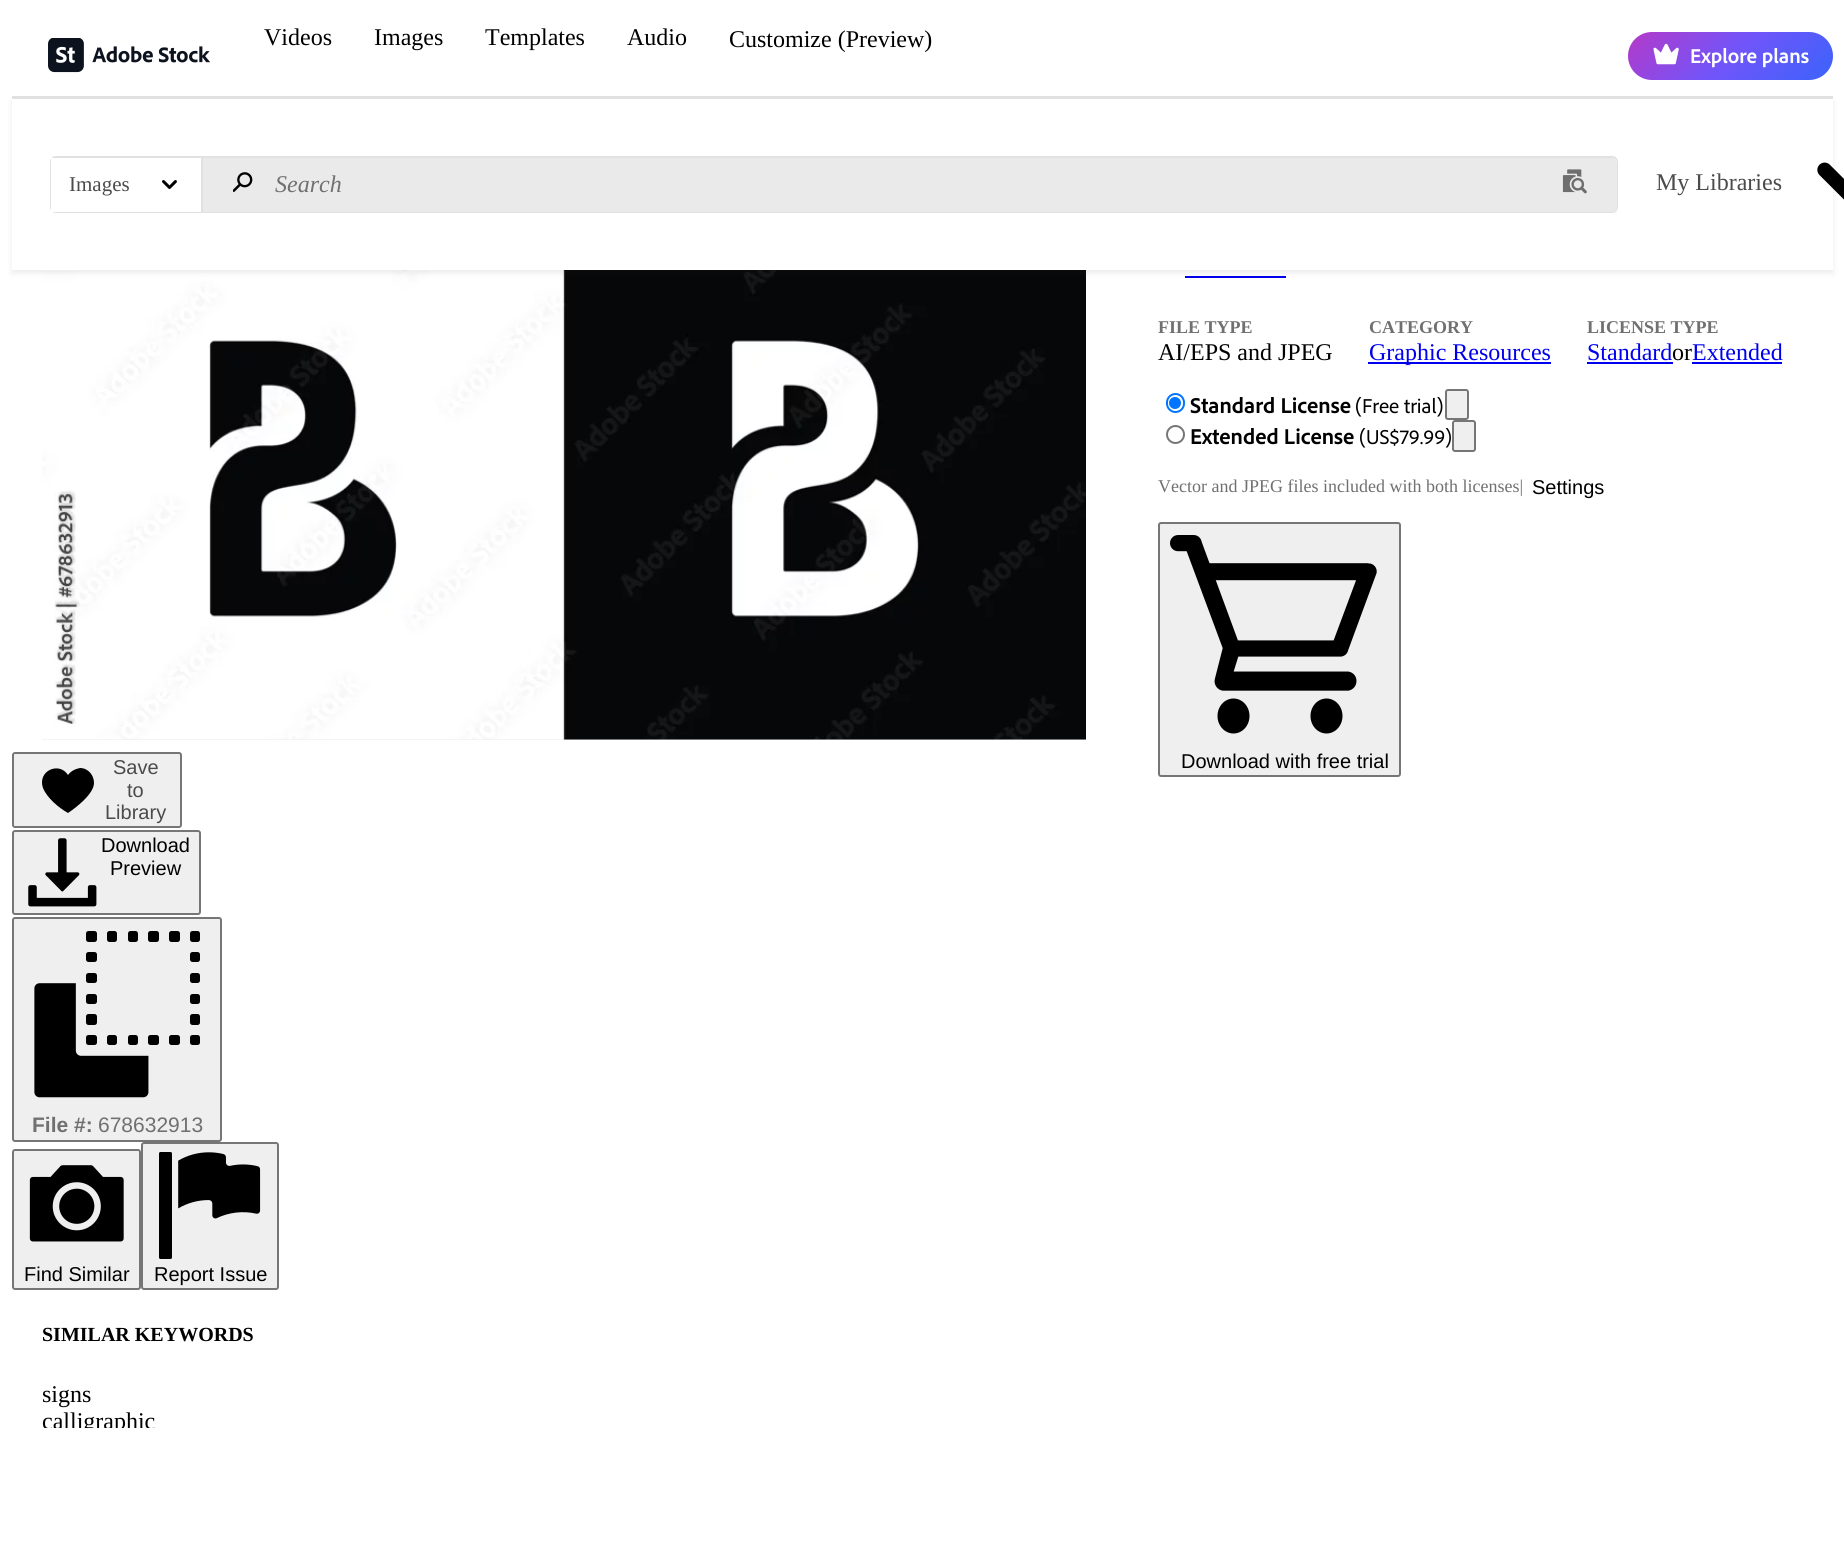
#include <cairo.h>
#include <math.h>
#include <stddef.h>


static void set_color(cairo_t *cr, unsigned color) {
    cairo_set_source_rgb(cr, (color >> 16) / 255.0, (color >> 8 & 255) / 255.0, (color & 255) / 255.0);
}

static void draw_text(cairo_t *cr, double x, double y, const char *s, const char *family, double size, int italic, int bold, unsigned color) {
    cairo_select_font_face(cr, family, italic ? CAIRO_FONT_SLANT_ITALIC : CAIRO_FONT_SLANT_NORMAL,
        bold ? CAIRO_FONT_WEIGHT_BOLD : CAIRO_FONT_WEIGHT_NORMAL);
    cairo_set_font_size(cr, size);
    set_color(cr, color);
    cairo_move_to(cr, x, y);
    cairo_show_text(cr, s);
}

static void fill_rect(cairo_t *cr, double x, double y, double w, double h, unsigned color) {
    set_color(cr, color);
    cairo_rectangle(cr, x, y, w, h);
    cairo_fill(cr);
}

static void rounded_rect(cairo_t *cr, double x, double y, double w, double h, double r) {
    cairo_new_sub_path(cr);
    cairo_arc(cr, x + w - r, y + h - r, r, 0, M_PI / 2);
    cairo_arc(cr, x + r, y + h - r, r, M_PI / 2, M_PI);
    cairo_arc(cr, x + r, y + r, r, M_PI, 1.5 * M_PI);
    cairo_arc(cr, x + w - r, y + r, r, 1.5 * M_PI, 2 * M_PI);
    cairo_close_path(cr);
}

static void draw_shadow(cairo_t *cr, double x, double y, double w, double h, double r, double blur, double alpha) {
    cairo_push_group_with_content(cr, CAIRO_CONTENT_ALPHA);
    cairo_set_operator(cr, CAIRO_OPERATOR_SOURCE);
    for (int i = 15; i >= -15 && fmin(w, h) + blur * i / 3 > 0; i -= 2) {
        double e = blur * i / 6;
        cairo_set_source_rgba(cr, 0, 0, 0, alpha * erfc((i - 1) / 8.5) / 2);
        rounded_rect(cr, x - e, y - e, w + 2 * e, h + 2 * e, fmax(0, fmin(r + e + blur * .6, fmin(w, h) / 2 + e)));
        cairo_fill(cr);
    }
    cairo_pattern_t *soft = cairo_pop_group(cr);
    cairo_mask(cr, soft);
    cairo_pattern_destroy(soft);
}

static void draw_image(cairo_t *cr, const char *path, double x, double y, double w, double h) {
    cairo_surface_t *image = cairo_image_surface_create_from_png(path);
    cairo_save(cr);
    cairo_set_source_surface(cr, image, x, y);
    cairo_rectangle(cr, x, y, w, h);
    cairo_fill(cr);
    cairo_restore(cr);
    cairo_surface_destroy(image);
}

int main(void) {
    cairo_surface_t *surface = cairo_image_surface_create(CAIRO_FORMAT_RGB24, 1844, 1561);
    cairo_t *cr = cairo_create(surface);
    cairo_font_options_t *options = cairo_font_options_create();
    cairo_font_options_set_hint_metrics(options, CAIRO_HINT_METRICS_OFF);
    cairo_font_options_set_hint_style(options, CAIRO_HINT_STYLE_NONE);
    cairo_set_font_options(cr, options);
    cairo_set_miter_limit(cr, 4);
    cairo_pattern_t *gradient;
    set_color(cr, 0xFFFFFF);
    cairo_paint(cr);
    fill_rect(cr, 1185, 276, 101, 2, 0x0000EE);
    fill_rect(cr, 42, 739, 1044, 1, 0xEAEAEA);
    draw_image(cr, "assets/img8.png", 42, 270, 1044, 470);
    set_color(cr, 0x343434);
    draw_shadow(cr, 12, 102, 1821, 171, 0, 3, 0.1);
    fill_rect(cr, 12, 96, 1821, 3, 0xE1E1E1);
    draw_image(cr, "assets/img1.png", 48, 38, 162, 35);
    draw_text(cr, 264, 45, "Videos", "Liberation Serif", 24, 0, 0, 0x000000);
    draw_text(cr, 374, 45, "Images", "Liberation Serif", 24, 0, 0, 0x000000);
    draw_text(cr, 485, 45, "Templates", "Liberation Serif", 24, 0, 0, 0x000000);
    draw_text(cr, 627, 45, "Audio", "Liberation Serif", 24, 0, 0, 0x000000);
    draw_text(cr, 729, 47, "Customize (Preview)", "Liberation Serif", 24, 0, 0, 0x000000);
    gradient = cairo_pattern_create_linear(1667, -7.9, 1794, 119);
    cairo_pattern_add_color_stop_rgba(gradient, 0, 0.71, 0.224, 0.784, 1);
    cairo_pattern_add_color_stop_rgba(gradient, 0.5, 0.443, 0.333, 0.98, 1);
    cairo_pattern_add_color_stop_rgba(gradient, 1, 0.231, 0.388, 0.984, 1);
    cairo_set_source(cr, gradient);
    cairo_pattern_destroy(gradient);
    rounded_rect(cr, 1628, 32, 205, 48, 24);
    cairo_fill(cr);
    draw_image(cr, "assets/img2.png", 1653, 43, 26, 22);
    draw_text(cr, 1690, 63, "Explore plans", "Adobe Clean", 21, 0, 1, 0xFFFFFF);
    fill_rect(cr, 12, 99, 1821, 171, 0xFFFFFF);
    cairo_new_path(cr);
    cairo_move_to(cr, 56, 157);
    cairo_line_to(cr, 202, 157);
    cairo_line_to(cr, 202, 212);
    cairo_line_to(cr, 56, 212);
    cairo_curve_to(cr, 53, 212, 51, 210, 51, 207);
    cairo_line_to(cr, 51, 162);
    cairo_curve_to(cr, 51, 159, 53, 157, 56, 157);
    cairo_close_path(cr);
    set_color(cr, 0xE1E1E1);
    cairo_stroke(cr);
    fill_rect(cr, 51, 158, 150, 54, 0xFFFFFF);
    draw_text(cr, 69, 191, "Images", "Liberation Serif", 21, 0, 0, 0x4B4B4B);
    draw_image(cr, "assets/img3.png", 162, 180, 15, 9);
    set_color(cr, 0xEAEAEA);
    cairo_new_path(cr);
    cairo_move_to(cr, 203, 158);
    cairo_line_to(cr, 1612, 158);
    cairo_curve_to(cr, 1615, 158, 1617, 160, 1617, 163);
    cairo_line_to(cr, 1617, 207);
    cairo_curve_to(cr, 1617, 210, 1615, 212, 1612, 212);
    cairo_line_to(cr, 203, 212);
    cairo_close_path(cr);
    cairo_fill(cr);
    set_color(cr, 0xE1E1E1);
    cairo_set_fill_rule(cr, CAIRO_FILL_RULE_EVEN_ODD);
    cairo_new_path(cr);
    cairo_move_to(cr, 202, 156);
    cairo_line_to(cr, 1612, 156);
    cairo_curve_to(cr, 1616, 156, 1618, 159, 1618, 162);
    cairo_line_to(cr, 1618, 207);
    cairo_curve_to(cr, 1618, 210, 1616, 213, 1612, 213);
    cairo_line_to(cr, 202, 213);
    cairo_close_path(cr);
    cairo_move_to(cr, 202, 158);
    cairo_line_to(cr, 1612, 158);
    cairo_curve_to(cr, 1615, 158, 1617, 160, 1617, 162);
    cairo_line_to(cr, 1617, 207);
    cairo_curve_to(cr, 1617, 209, 1615, 212, 1612, 212);
    cairo_line_to(cr, 202, 212);
    cairo_close_path(cr);
    cairo_fill(cr);
    draw_image(cr, "assets/img4.png", 233, 172, 20, 20);
    draw_text(cr, 275, 192, "Search", "Liberation Serif", 24, 1, 0, 0x707070);
    draw_image(cr, "assets/img5.png", 1562, 169, 25, 25);
    draw_text(cr, 1656, 190, "My Libraries", "Liberation Serif", 24, 0, 0, 0x4B4B4B);
    draw_image(cr, "assets/img6.png", 1817, 162, 27, 38);
    draw_text(cr, 1158, 333, "FILE TYPE", "Liberation Serif", 18, 0, 1, 0x707070);
    draw_text(cr, 1158, 360, "AI/EPS and JPEG", "Liberation Serif", 24, 0, 0, 0x000000);
    draw_text(cr, 1369, 333, "CATEGORY", "Liberation Serif", 18, 0, 1, 0x707070);
    fill_rect(cr, 1368, 362, 183, 2, 0x0000EE);
    draw_text(cr, 1369, 360, "Graphic Resources", "Liberation Serif", 24, 0, 0, 0x0000EE);
    draw_text(cr, 1587, 333, "LICENSE TYPE", "Liberation Serif", 18, 0, 1, 0x707070);
    draw_text(cr, 1587, 360, "Standard", "Liberation Serif", 24, 0, 0, 0x0000EE);
    draw_text(cr, 1672, 360, "or", "Liberation Serif", 24, 0, 0, 0x000000);
    fill_rect(cr, 1587, 362, 86, 2, 0x0000EE);
    fill_rect(cr, 1692, 362, 90, 2, 0x0000EE);
    draw_text(cr, 1692, 360, "Extended", "Liberation Serif", 24, 0, 0, 0x0000EE);
    rounded_rect(cr, 1167, 394, 17, 18, 8.5);
    set_color(cr, 0x0075FF);
    cairo_stroke(cr);
    cairo_arc(cr, 1175, 403, 6, 0, 2 * M_PI);
    cairo_fill(cr);
    draw_text(cr, 1190, 413, "Standard License", "Adobe Clean", 22.5, 0, 1, 0x000000);
    draw_text(cr, 1355, 413, "(Free trial)", "Adobe Clean", 21, 0, 0, 0x000000);
    set_color(cr, 0xEFEFEF);
    rounded_rect(cr, 1446, 390, 22, 29, 2);
    cairo_fill_preserve(cr);
    set_color(cr, 0x767676);
    cairo_stroke(cr);
    cairo_arc(cr, 1175.5, 434.5, 8.5, 0, 2 * M_PI);
    cairo_stroke(cr);
    draw_text(cr, 1190, 444, "Extended License", "Adobe Clean", 22.5, 0, 1, 0x000000);
    draw_text(cr, 1359, 444, "(US$79.99)", "Adobe Clean", 21, 0, 0, 0x000000);
    set_color(cr, 0xEFEFEF);
    rounded_rect(cr, 1453, 421, 22, 30, 2);
    cairo_fill_preserve(cr);
    set_color(cr, 0x767676);
    cairo_stroke(cr);
    draw_text(cr, 1158, 492, "Vector and JPEG files included with both licenses|", "Liberation Serif", 18, 0, 0, 0x707070);
    draw_text(cr, 1532, 494, "Settings", "Liberation Sans", 20, 0, 0, 0x000000);
    set_color(cr, 0xEFEFEF);
    rounded_rect(cr, 1159, 523, 241, 253, 2);
    cairo_fill_preserve(cr);
    set_color(cr, 0x767676);
    cairo_stroke(cr);
    draw_image(cr, "assets/img7.png", 1170, 535, 207, 199);
    draw_text(cr, 1181, 768, "Download with free trial", "Liberation Sans", 20, 0, 0, 0x000000);
    set_color(cr, 0xEFEFEF);
    rounded_rect(cr, 13, 753, 168, 74, 2);
    cairo_fill_preserve(cr);
    set_color(cr, 0x767676);
    cairo_stroke(cr);
    set_color(cr, 0x000000);
    cairo_new_path(cr);
    cairo_move_to(cr, 80, 768);
    cairo_curve_to(cr, 75, 769, 71, 771, 68, 775);
    cairo_curve_to(cr, 59, 761, 37, 771, 43, 788);
    cairo_curve_to(cr, 47, 798, 59, 808, 68, 813);
    cairo_curve_to(cr, 68, 813, 94, 796, 94, 783);
    cairo_curve_to(cr, 94, 775, 88, 768, 80, 768);
    cairo_close_path(cr);
    cairo_fill(cr);
    draw_text(cr, 113, 774, "Save", "Liberation Sans", 20, 0, 0, 0x4B4B4B);
    draw_text(cr, 127, 797, "to", "Liberation Sans", 20, 0, 0, 0x4B4B4B);
    draw_text(cr, 105, 819, "Library", "Liberation Sans", 20, 0, 0, 0x4B4B4B);
    set_color(cr, 0xEFEFEF);
    rounded_rect(cr, 13, 831, 187, 83, 2);
    cairo_fill_preserve(cr);
    set_color(cr, 0x767676);
    cairo_stroke(cr);
    draw_image(cr, "assets/img9.png", 28, 838, 69, 69);
    draw_text(cr, 101, 852, "Download", "Liberation Sans", 20, 0, 0, 0x000000);
    draw_text(cr, 110, 875, "Preview", "Liberation Sans", 20, 0, 0, 0x000000);
    set_color(cr, 0xEFEFEF);
    rounded_rect(cr, 13, 918, 208, 223, 2);
    cairo_fill_preserve(cr);
    set_color(cr, 0x767676);
    cairo_stroke(cr);
    draw_image(cr, "assets/img10.png", 34, 931, 166, 167);
    draw_text(cr, 32, 1132, "File #:", "Liberation Sans", 21, 0, 1, 0x707070);
    draw_text(cr, 98, 1132, "678632913", "Liberation Sans", 21, 0, 0, 0x707070);
    set_color(cr, 0xEFEFEF);
    rounded_rect(cr, 13, 1150, 127, 139, 2);
    cairo_fill_preserve(cr);
    set_color(cr, 0x767676);
    cairo_stroke(cr);
    draw_image(cr, "assets/img11.png", 29, 1165, 95, 77);
    draw_text(cr, 24, 1281, "Find Similar", "Liberation Sans", 20, 0, 0, 0x000000);
    set_color(cr, 0xEFEFEF);
    rounded_rect(cr, 142, 1143, 136, 146, 2);
    cairo_fill_preserve(cr);
    set_color(cr, 0x767676);
    cairo_stroke(cr);
    draw_image(cr, "assets/img12.png", 159, 1152, 102, 107);
    draw_text(cr, 154, 1281, "Report Issue", "Liberation Sans", 20, 0, 0, 0x000000);
    draw_text(cr, 42, 1341, "SIMILAR KEYWORDS", "Liberation Serif", 20, 0, 1, 0x000000);
    draw_text(cr, 42, 1402, "signs", "Liberation Serif", 24, 0, 0, 0x000000);
    cairo_save(cr);
    cairo_set_fill_rule(cr, CAIRO_FILL_RULE_WINDING);
    cairo_rectangle(cr, 42, 1380, 1761, 48);
    cairo_clip(cr);
    draw_text(cr, 42, 1429, "calligraphic", "Liberation Serif", 24, 0, 0, 0x000000);
    cairo_restore(cr);
    cairo_surface_write_to_png(surface, "output.png");
    cairo_font_options_destroy(options);
    cairo_destroy(cr);
    cairo_surface_destroy(surface);
    return 0;
}
